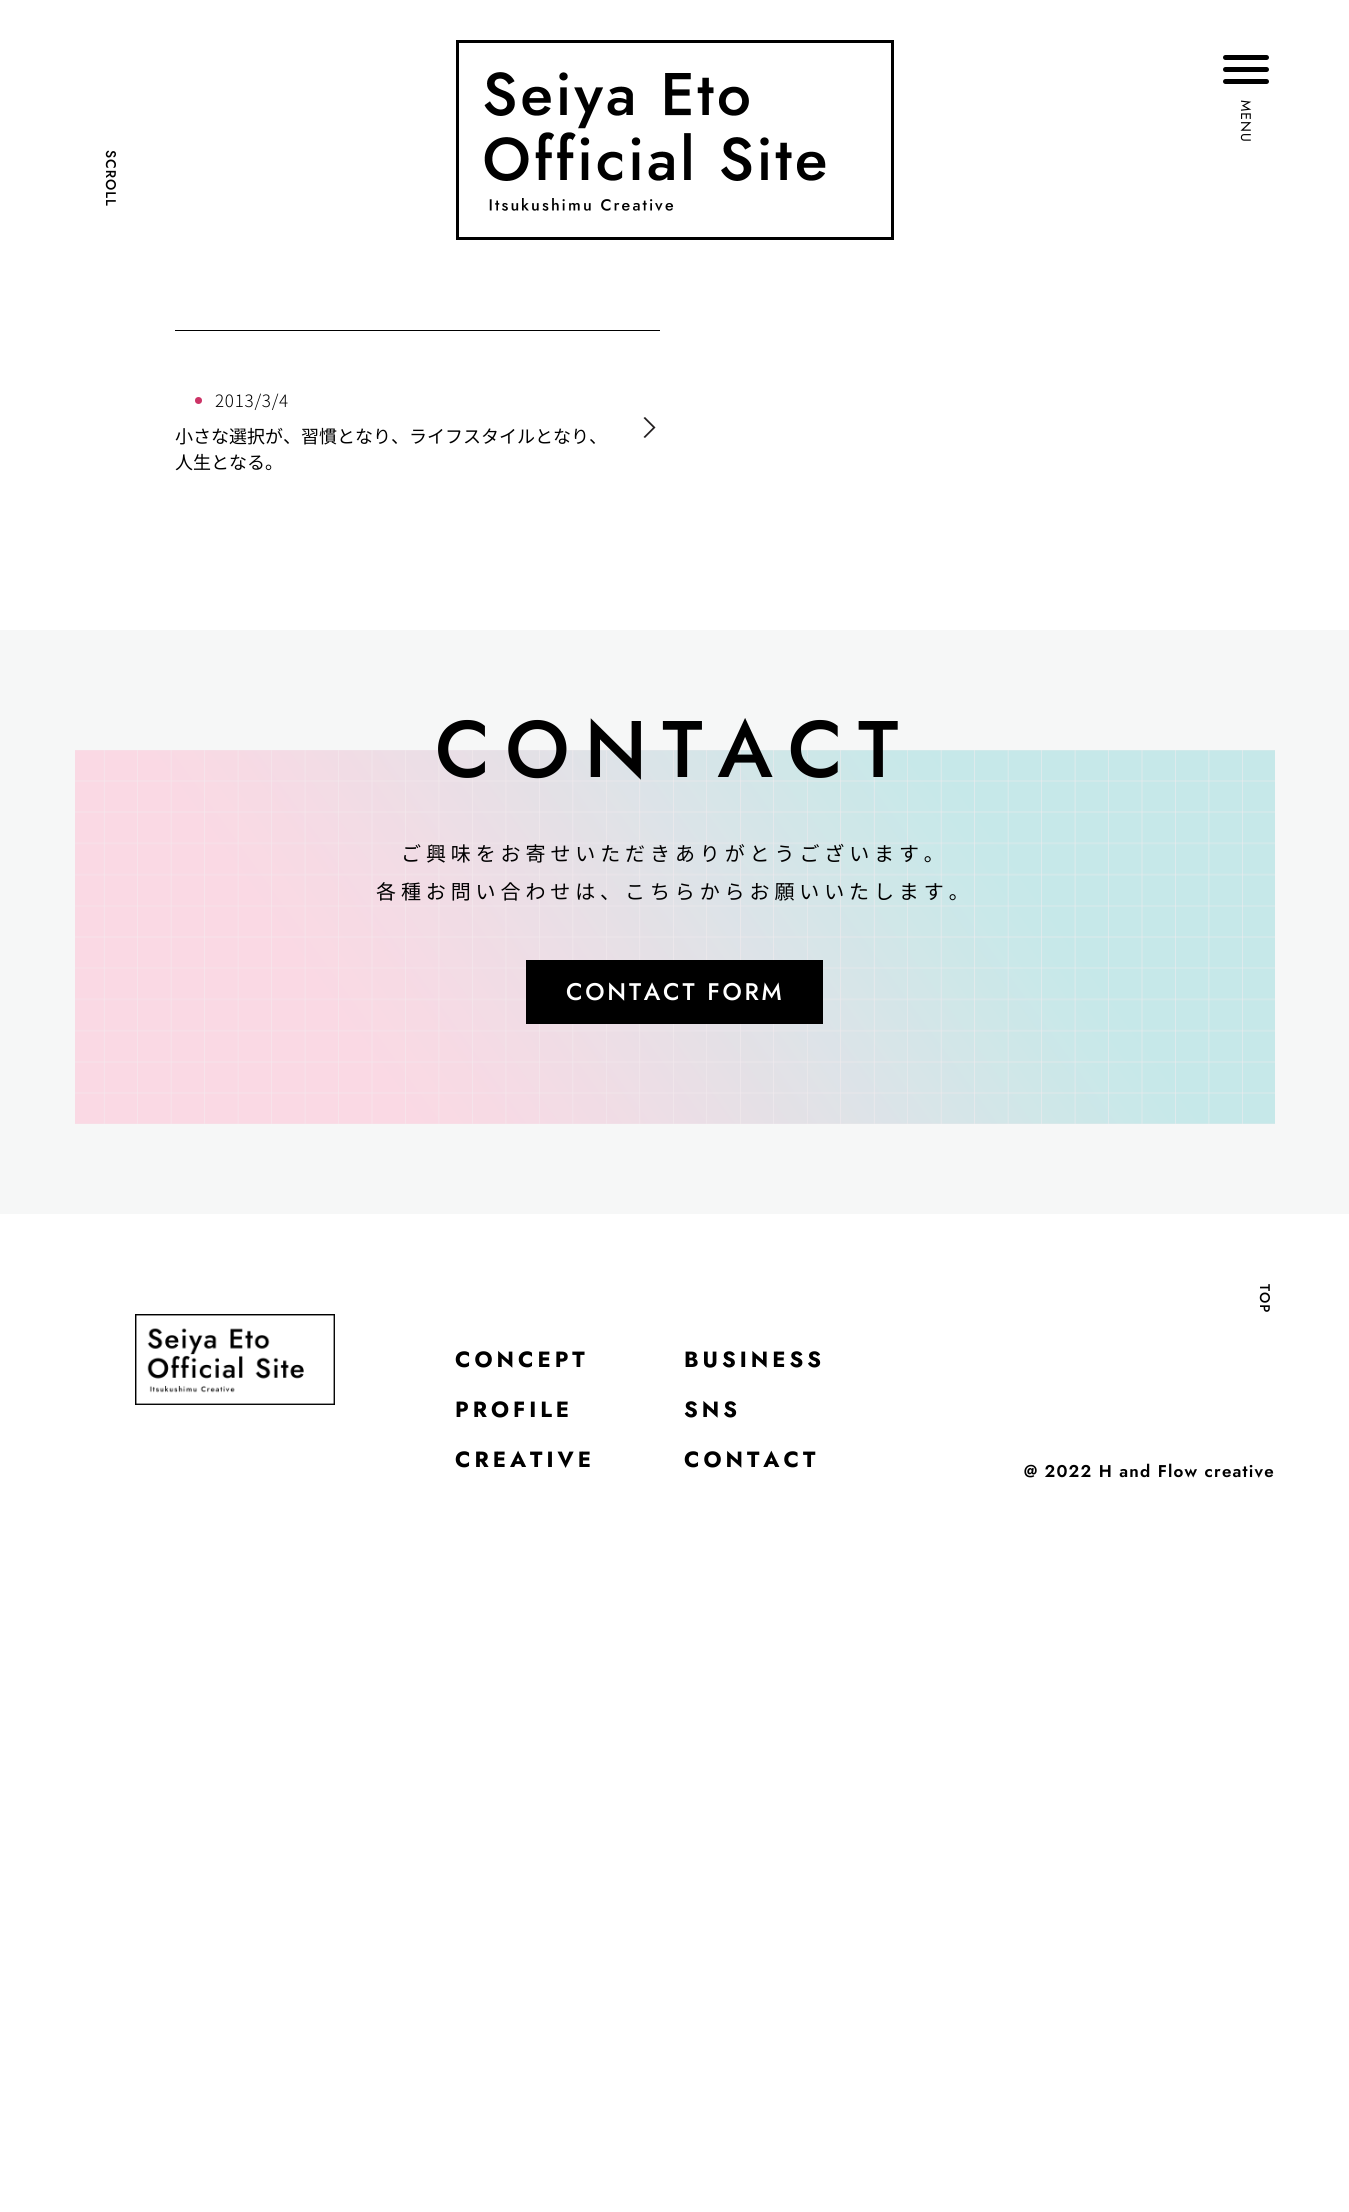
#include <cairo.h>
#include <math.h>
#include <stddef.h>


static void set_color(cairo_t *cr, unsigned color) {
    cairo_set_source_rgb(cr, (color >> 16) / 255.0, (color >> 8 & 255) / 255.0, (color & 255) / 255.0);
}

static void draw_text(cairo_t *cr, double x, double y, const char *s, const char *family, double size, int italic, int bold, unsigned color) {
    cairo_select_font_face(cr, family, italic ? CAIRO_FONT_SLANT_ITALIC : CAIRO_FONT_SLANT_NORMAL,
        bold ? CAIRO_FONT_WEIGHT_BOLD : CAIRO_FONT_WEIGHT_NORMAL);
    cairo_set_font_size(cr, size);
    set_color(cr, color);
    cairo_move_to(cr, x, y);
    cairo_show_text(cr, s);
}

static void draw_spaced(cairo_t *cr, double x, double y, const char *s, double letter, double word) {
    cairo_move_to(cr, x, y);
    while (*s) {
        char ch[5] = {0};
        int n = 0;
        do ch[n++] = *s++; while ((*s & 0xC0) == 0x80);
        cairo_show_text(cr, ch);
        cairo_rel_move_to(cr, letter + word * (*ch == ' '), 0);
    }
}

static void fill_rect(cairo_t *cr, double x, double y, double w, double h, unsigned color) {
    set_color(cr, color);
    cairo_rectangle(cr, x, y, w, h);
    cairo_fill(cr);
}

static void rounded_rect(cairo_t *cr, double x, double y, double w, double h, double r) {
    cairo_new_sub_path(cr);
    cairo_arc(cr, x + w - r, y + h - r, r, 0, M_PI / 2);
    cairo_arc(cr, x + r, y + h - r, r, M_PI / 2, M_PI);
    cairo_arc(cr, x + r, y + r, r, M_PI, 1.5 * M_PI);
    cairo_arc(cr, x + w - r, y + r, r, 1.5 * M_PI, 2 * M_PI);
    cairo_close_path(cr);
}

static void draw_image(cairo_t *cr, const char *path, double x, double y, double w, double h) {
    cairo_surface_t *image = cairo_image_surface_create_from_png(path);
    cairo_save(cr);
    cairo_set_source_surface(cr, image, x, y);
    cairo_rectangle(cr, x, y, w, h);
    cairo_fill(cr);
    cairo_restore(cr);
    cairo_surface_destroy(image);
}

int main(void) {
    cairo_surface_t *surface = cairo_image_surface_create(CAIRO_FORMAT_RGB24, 1349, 2212);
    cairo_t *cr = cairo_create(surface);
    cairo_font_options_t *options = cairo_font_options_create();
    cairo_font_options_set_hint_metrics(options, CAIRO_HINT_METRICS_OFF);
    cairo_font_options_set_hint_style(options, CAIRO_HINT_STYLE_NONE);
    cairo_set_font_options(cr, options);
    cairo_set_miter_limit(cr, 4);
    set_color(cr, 0xFFFFFF);
    cairo_paint(cr);
    draw_image(cr, "assets/img1.png", 456, 40, 438, 200);
    set_color(cr, 0x000000);
    rounded_rect(cr, 1223, 67, 46, 5, 2.5);
    cairo_fill(cr);
    rounded_rect(cr, 1223, 55, 46, 5, 2.5);
    cairo_fill(cr);
    rounded_rect(cr, 1223, 79, 46, 5, 2.5);
    cairo_fill(cr);
    cairo_select_font_face(cr, "Jost", CAIRO_FONT_SLANT_NORMAL, CAIRO_FONT_WEIGHT_NORMAL);
    cairo_set_font_size(cr, 14);
    cairo_save(cr);
    cairo_translate(cr, 1241, 100);
    cairo_rotate(cr, 90 * M_PI / 180);
    draw_spaced(cr, 0, 0, "MENU", 1, 0);
    cairo_restore(cr);
    cairo_select_font_face(cr, "Jost Medium", CAIRO_FONT_SLANT_NORMAL, CAIRO_FONT_WEIGHT_NORMAL);
    cairo_save(cr);
    cairo_translate(cr, 106, 150);
    cairo_rotate(cr, 90 * M_PI / 180);
    draw_spaced(cr, 0, 0, "SCROLL", 1, 0);
    cairo_restore(cr);
    fill_rect(cr, 175, 330, 485, 1, 0x000000);
    set_color(cr, 0xCC3366);
    cairo_new_path(cr);
    cairo_arc(cr, 198.5, 400.5, 3.5, 0, 2 * M_PI);
    cairo_fill(cr);
    cairo_select_font_face(cr, "Noto Sans JP Light", CAIRO_FONT_SLANT_NORMAL, CAIRO_FONT_WEIGHT_NORMAL);
    cairo_set_font_size(cr, 17);
    set_color(cr, 0x000000);
    draw_spaced(cr, 215, 407, "2013/3/4", 0.75, 0);
    draw_text(cr, 175, 443, "小さな選択が、習慣となり、ライフスタイルとなり、", "Noto Sans JP", 18, 0, 0, 0x000000);
    draw_text(cr, 175, 469, "人生となる。", "Noto Sans JP", 18, 0, 0, 0x000000);
    set_color(cr, 0x231F20);
    cairo_new_path(cr);
    cairo_move_to(cr, 643.5, 437);
    cairo_line_to(cr, 645, 438);
    cairo_line_to(cr, 655.5, 427.5);
    cairo_line_to(cr, 645, 417);
    cairo_line_to(cr, 643.5, 418);
    cairo_line_to(cr, 653, 427.5);
    cairo_close_path(cr);
    cairo_fill(cr);
    fill_rect(cr, 0, 630, 1349, 584, 0xF6F7F7);
    fill_rect(cr, 75, 750, 1200, 374, 0xF9E1EA);
    draw_image(cr, "assets/img2.png", 75, 750, 1200, 374);
    cairo_select_font_face(cr, "Jost Medium", CAIRO_FONT_SLANT_NORMAL, CAIRO_FONT_WEIGHT_NORMAL);
    cairo_set_font_size(cr, 80);
    set_color(cr, 0x000000);
    draw_spaced(cr, 435, 777, "CONTACT", 15, 0);
    cairo_select_font_face(cr, "Noto Sans JP", CAIRO_FONT_SLANT_NORMAL, CAIRO_FONT_WEIGHT_NORMAL);
    cairo_set_font_size(cr, 20);
    draw_spaced(cr, 401, 861, "ご興味をお寄せいただきありがとうございます。", 4.9, 0);
    draw_spaced(cr, 376, 899, "各種お問い合わせは、こちらからお願いいたします。", 4.9, 0);
    fill_rect(cr, 526, 960, 297, 64, 0x000000);
    cairo_select_font_face(cr, "Jost Medium", CAIRO_FONT_SLANT_NORMAL, CAIRO_FONT_WEIGHT_NORMAL);
    cairo_set_font_size(cr, 24);
    set_color(cr, 0xFFFFFF);
    draw_spaced(cr, 566, 1000, "CONTACT FORM", 2.75, 0);
    draw_image(cr, "assets/img3.png", 135, 1314, 200, 91);
    cairo_set_font_size(cr, 14);
    set_color(cr, 0x000000);
    cairo_save(cr);
    cairo_translate(cr, 1260, 1284);
    cairo_rotate(cr, 90 * M_PI / 180);
    draw_spaced(cr, 0, 0, "TOP", 1, 0);
    cairo_restore(cr);
    cairo_select_font_face(cr, "Jost", CAIRO_FONT_SLANT_NORMAL, CAIRO_FONT_WEIGHT_BOLD);
    cairo_set_font_size(cr, 22);
    draw_spaced(cr, 455, 1367, "CONCEPT", 4, 0);
    draw_spaced(cr, 455, 1417, "PROFILE", 4, 0);
    draw_spaced(cr, 455, 1467, "CREATIVE", 4, 0);
    draw_spaced(cr, 684, 1367, "BUSINESS", 4, 0);
    draw_spaced(cr, 684, 1417, "SNS", 4, 0);
    draw_spaced(cr, 684, 1467, "CONTACT", 4, 0);
    cairo_select_font_face(cr, "Jost SemiBold", CAIRO_FONT_SLANT_NORMAL, CAIRO_FONT_WEIGHT_NORMAL);
    cairo_set_font_size(cr, 17);
    draw_spaced(cr, 1024, 1477, "@ 2022 H and Flow creative", 1.2, 0);
    cairo_surface_write_to_png(surface, "output.png");
    cairo_font_options_destroy(options);
    cairo_destroy(cr);
    cairo_surface_destroy(surface);
    return 0;
}
